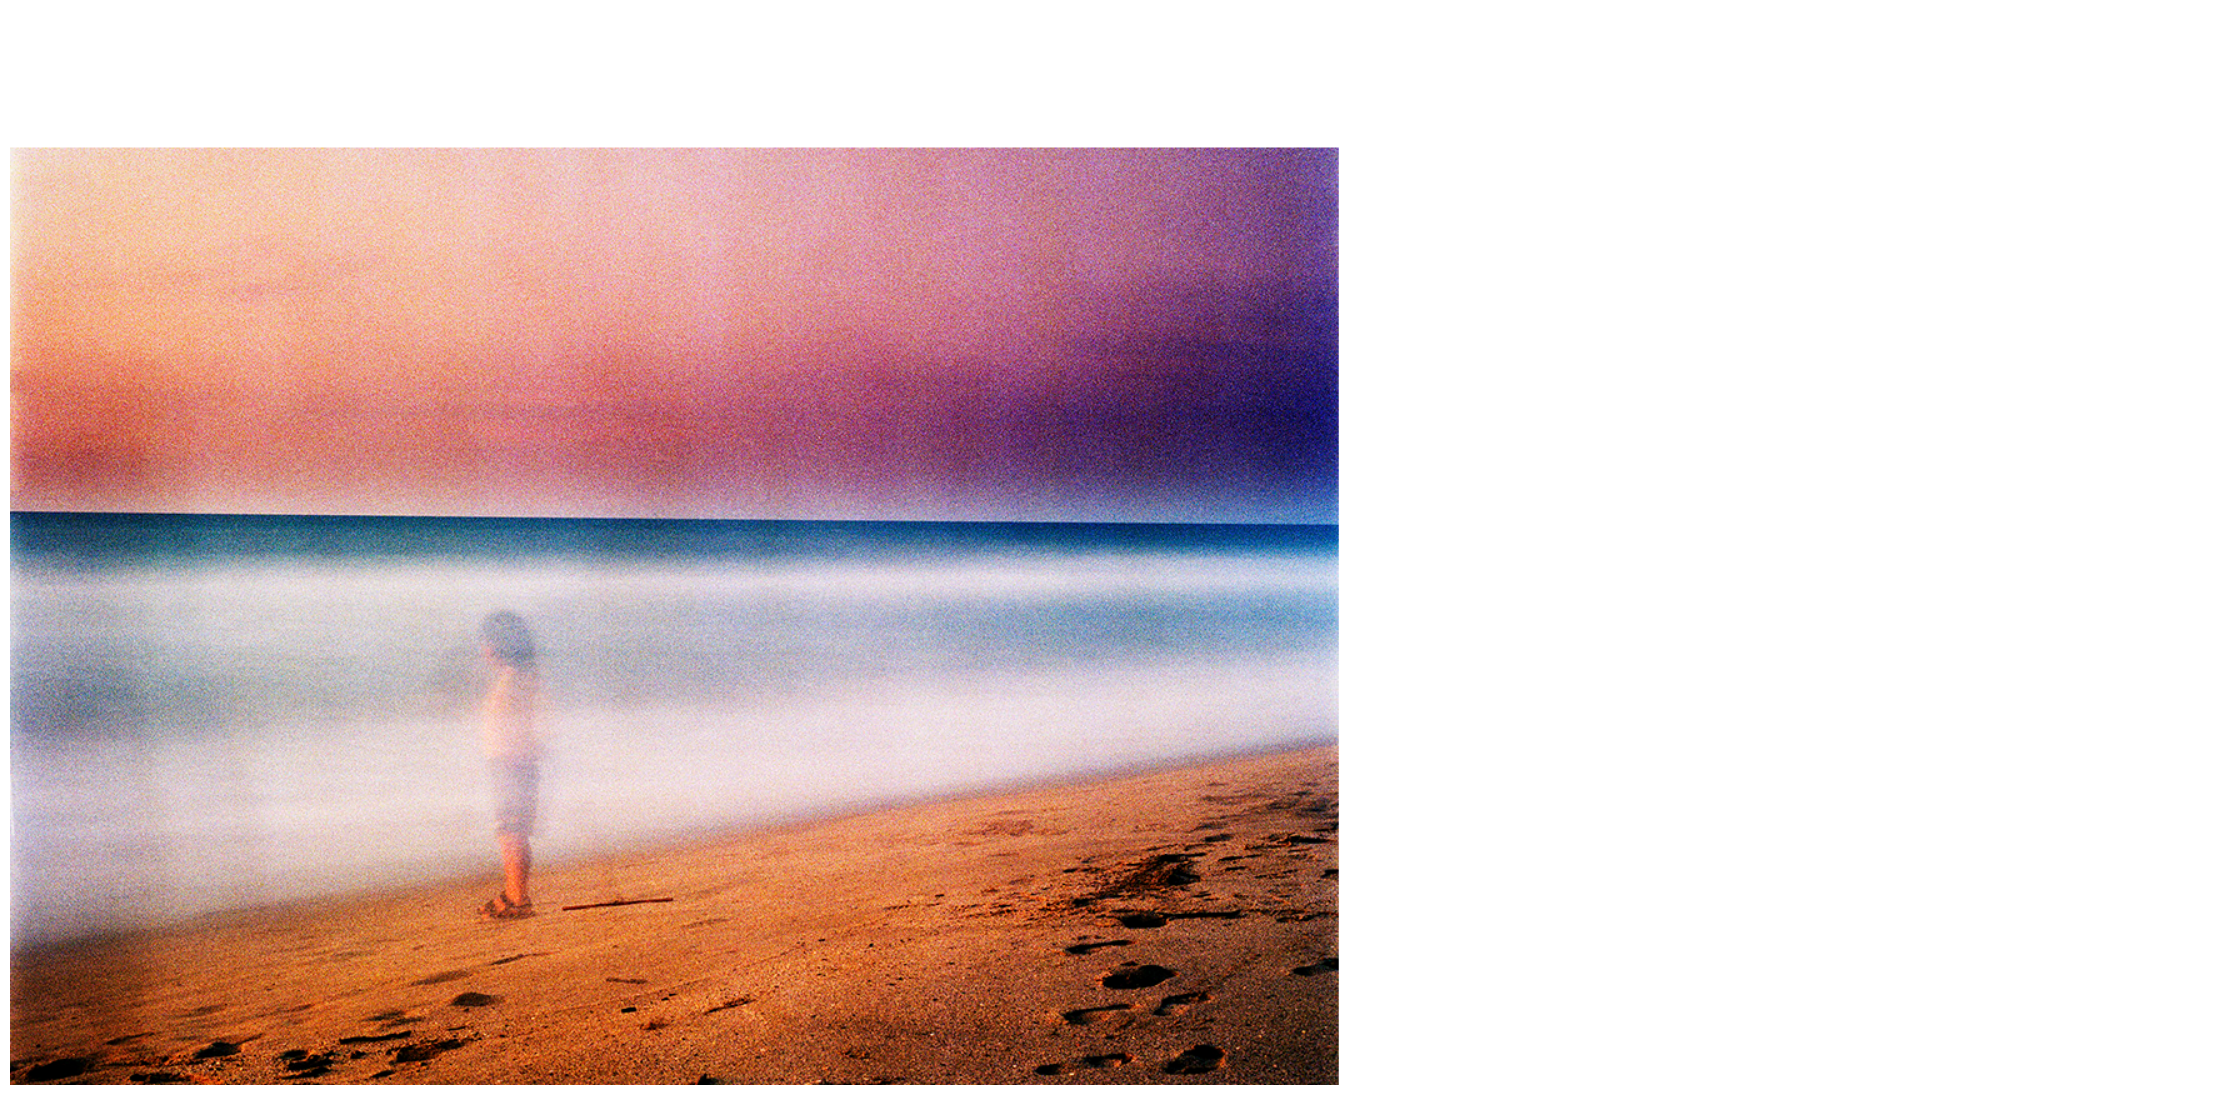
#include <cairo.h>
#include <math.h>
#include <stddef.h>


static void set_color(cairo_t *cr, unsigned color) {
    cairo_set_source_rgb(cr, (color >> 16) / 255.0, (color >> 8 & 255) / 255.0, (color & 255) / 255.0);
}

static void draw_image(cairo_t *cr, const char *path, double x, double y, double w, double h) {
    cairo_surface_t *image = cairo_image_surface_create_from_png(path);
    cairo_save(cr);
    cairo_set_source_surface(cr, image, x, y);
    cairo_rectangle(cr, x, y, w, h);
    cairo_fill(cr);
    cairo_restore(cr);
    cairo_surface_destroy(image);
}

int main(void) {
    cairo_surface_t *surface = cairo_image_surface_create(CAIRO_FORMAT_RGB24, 2220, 1096);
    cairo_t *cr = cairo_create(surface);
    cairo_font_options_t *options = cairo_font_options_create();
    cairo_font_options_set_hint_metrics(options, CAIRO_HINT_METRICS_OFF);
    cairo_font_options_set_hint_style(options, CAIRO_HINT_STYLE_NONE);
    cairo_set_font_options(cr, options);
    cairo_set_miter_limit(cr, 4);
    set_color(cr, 0xFFFFFF);
    cairo_paint(cr);
    draw_image(cr, "assets/img1.png", 10, 147, 1329, 938);
    cairo_surface_write_to_png(surface, "output.png");
    cairo_font_options_destroy(options);
    cairo_destroy(cr);
    cairo_surface_destroy(surface);
    return 0;
}
